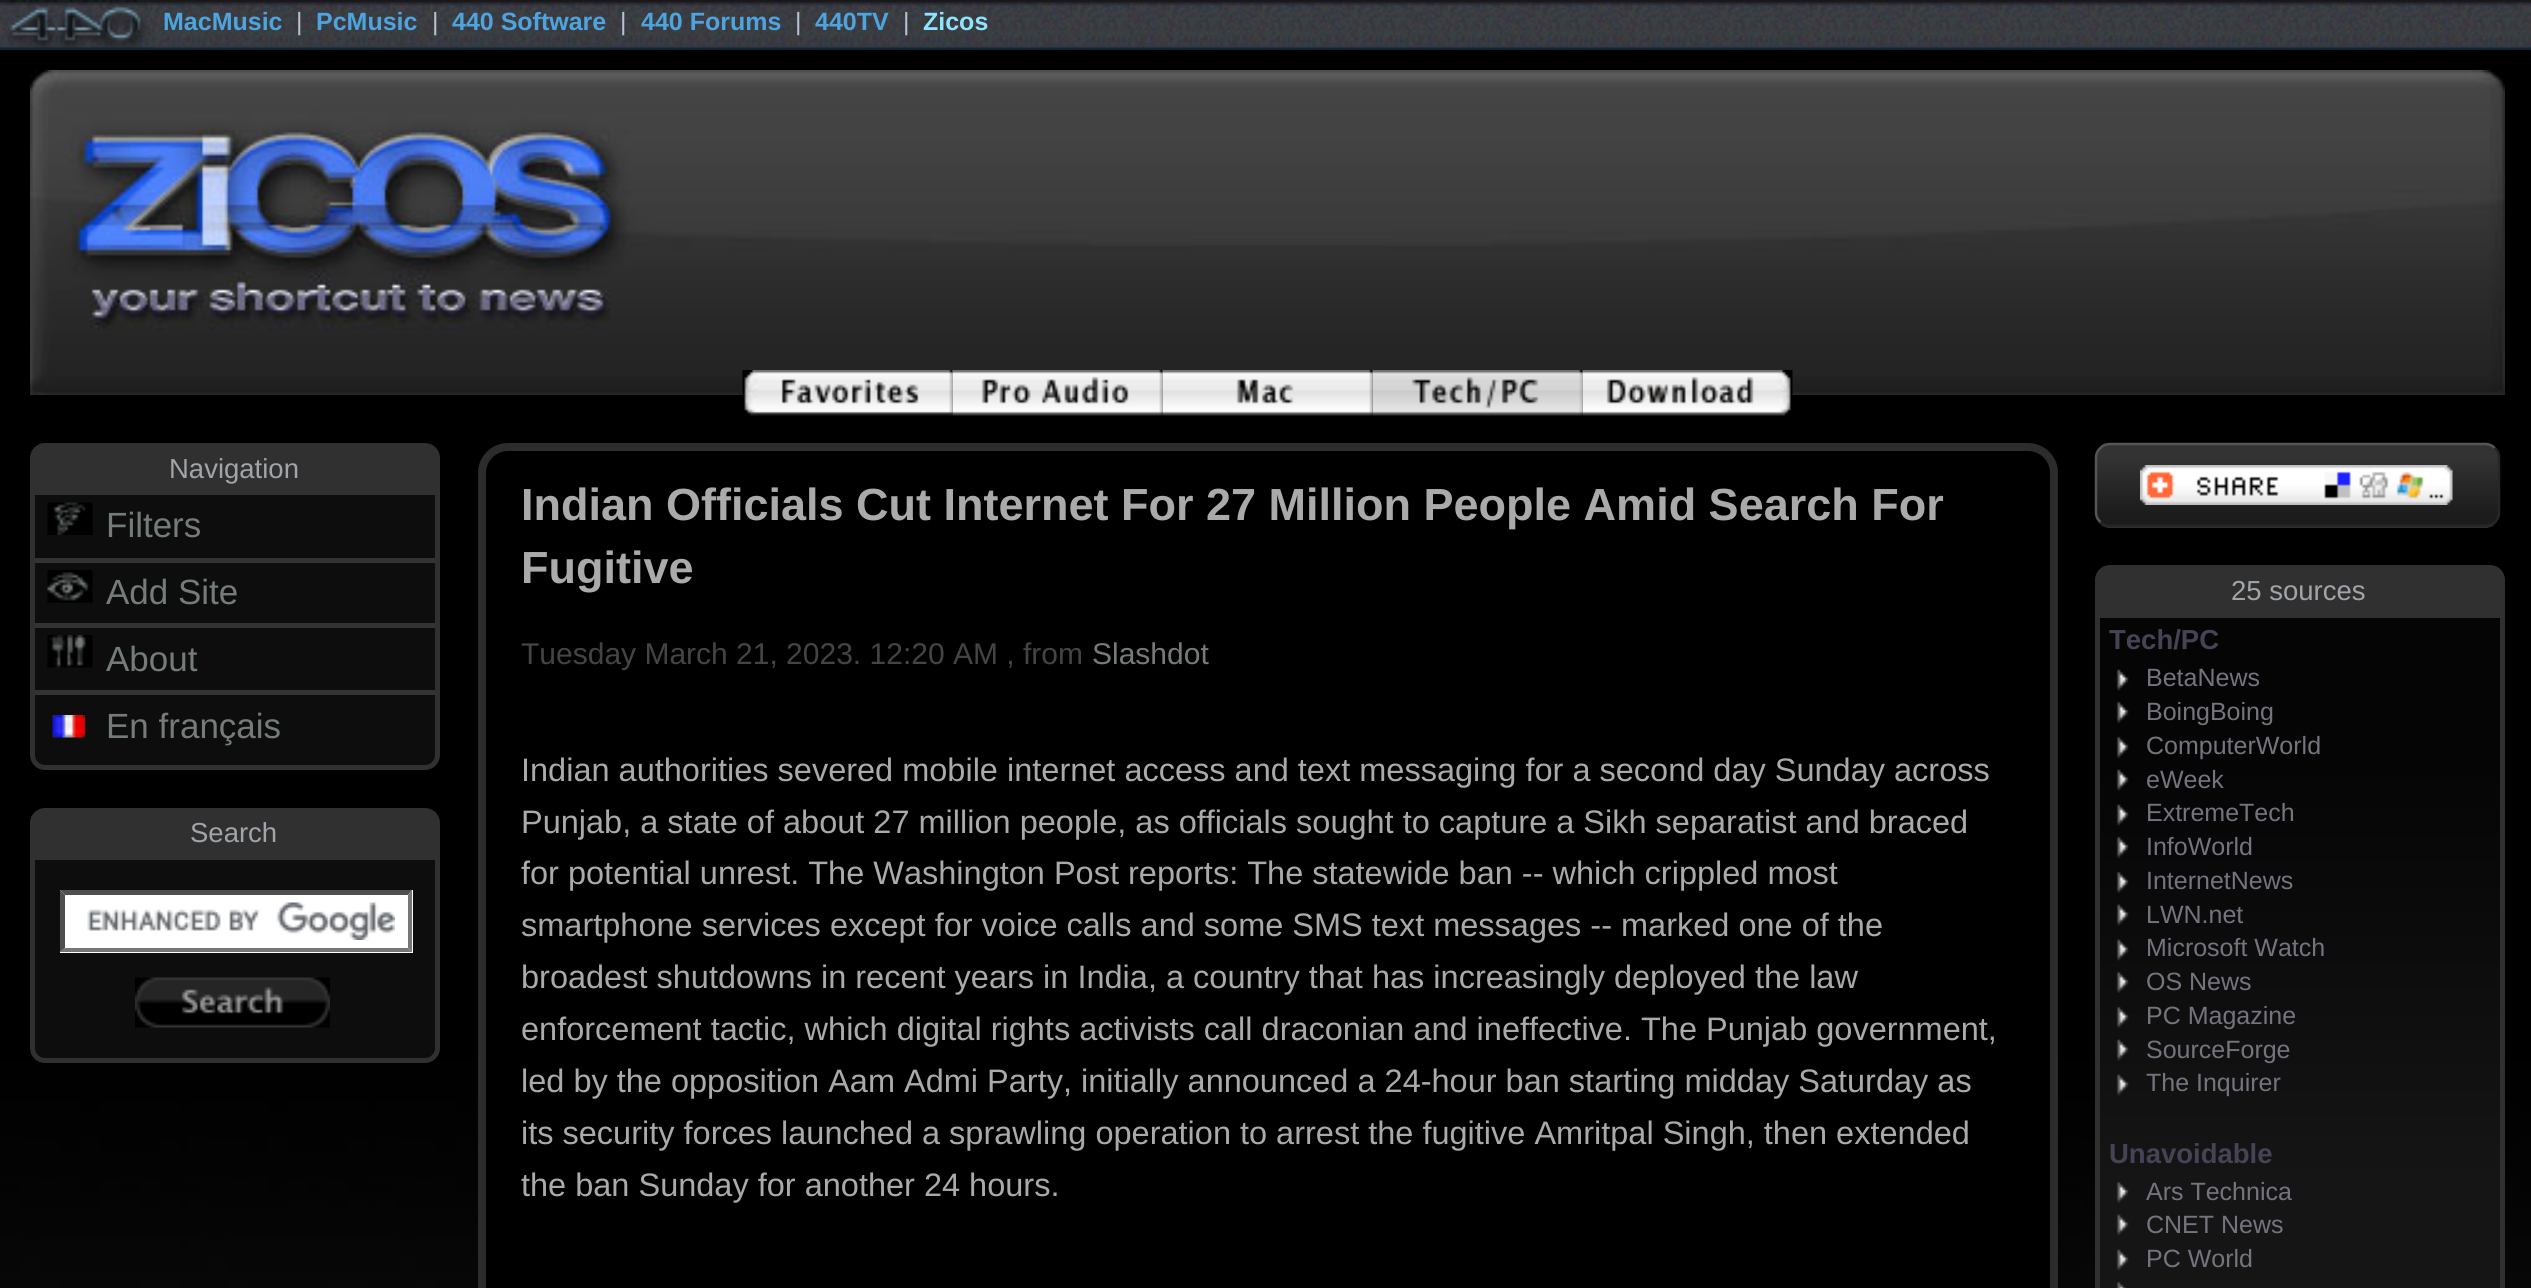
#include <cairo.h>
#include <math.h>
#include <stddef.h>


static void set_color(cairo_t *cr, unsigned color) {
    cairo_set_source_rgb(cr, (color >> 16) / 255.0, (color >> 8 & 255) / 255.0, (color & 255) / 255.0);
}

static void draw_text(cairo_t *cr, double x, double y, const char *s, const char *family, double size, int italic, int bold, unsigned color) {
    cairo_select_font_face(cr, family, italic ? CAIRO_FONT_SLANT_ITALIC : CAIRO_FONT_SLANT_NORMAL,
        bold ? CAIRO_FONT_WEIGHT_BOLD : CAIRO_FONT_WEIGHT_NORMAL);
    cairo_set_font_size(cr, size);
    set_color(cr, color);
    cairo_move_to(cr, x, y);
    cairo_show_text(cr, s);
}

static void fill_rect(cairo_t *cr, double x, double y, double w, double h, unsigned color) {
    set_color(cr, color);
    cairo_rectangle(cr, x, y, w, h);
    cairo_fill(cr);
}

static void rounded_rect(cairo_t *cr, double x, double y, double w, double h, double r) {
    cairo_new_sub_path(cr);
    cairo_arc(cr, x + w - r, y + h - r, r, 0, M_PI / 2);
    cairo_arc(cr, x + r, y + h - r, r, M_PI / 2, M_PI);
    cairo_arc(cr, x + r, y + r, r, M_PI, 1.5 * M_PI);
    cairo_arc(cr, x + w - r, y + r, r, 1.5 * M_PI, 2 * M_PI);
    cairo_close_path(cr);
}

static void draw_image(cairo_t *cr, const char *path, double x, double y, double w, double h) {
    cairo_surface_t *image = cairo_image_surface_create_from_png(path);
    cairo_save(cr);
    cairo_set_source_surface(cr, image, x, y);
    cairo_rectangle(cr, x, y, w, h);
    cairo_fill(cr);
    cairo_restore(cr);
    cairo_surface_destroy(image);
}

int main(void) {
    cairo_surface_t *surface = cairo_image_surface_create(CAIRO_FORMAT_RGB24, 2531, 1288);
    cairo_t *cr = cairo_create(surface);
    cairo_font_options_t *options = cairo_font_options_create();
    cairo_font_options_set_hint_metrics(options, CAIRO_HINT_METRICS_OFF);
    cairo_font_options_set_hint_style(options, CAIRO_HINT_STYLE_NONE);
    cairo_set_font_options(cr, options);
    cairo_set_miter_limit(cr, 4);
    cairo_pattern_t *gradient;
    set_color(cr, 0xFFFFFF);
    cairo_paint(cr);
    draw_image(cr, "assets/img1.png", 0, 50, 2531, 1238);
    draw_image(cr, "assets/img2.png", 0, 0, 2531, 50);
    draw_image(cr, "assets/img3.png", 0, 0, 151, 49);
    draw_text(cr, 163, 30, "MacMusic", "Liberation Sans", 25, 0, 1, 0x4EA4DE);
    draw_text(cr, 296, 30, "|", "Liberation Sans", 25, 0, 0, 0xB7C3D1);
    draw_text(cr, 316, 30, "PcMusic", "Liberation Sans", 25, 0, 1, 0x4EA4DE);
    draw_text(cr, 432, 30, "|", "Liberation Sans", 25, 0, 0, 0xB7C3D1);
    draw_text(cr, 452, 30, "440 Software", "Liberation Sans", 25, 0, 1, 0x4EA4DE);
    draw_text(cr, 620, 30, "|", "Liberation Sans", 25, 0, 0, 0xB7C3D1);
    draw_text(cr, 641, 30, "440 Forums", "Liberation Sans", 25, 0, 1, 0x4EA4DE);
    draw_text(cr, 795, 30, "|", "Liberation Sans", 25, 0, 0, 0xB7C3D1);
    draw_text(cr, 815, 30, "440TV", "Liberation Sans", 25, 0, 1, 0x4EA4DE);
    draw_text(cr, 903, 30, "|", "Liberation Sans", 25, 0, 0, 0xB7C3D1);
    draw_text(cr, 923, 30, "Zicos", "Liberation Sans", 25, 0, 1, 0x8EE4FF);
    draw_image(cr, "assets/img4.png", 30, 70, 2475, 325);
    draw_image(cr, "assets/img5.png", 742, 370, 211, 47);
    draw_image(cr, "assets/img6.png", 952, 370, 211, 46);
    draw_image(cr, "assets/img7.png", 1162, 370, 211, 46);
    draw_image(cr, "assets/img8.png", 1372, 370, 211, 46);
    draw_image(cr, "assets/img9.png", 1582, 370, 211, 46);
    set_color(cr, 0x0D0D0D);
    rounded_rect(cr, 32.5, 445.5, 405, 322, 12.5);
    cairo_fill_preserve(cr);
    set_color(cr, 0x303030);
    cairo_set_line_width(cr, 5);
    cairo_stroke(cr);
    fill_rect(cr, 35, 448, 400, 47, 0x303030);
    draw_text(cr, 169, 478, "Navigation", "Liberation Sans", 27.5, 0, 0, 0xA1A5A9);
    draw_image(cr, "assets/img10.png", 47, 502, 46, 33);
    fill_rect(cr, 35, 558, 400, 5, 0x333333);
    draw_text(cr, 106, 537, "Filters", "Liberation Sans", 35, 0, 0, 0x747B78);
    draw_image(cr, "assets/img11.png", 47, 570, 46, 33);
    fill_rect(cr, 35, 623, 400, 5, 0x333333);
    draw_text(cr, 106, 604, "Add Site", "Liberation Sans", 35, 0, 0, 0x747B78);
    draw_image(cr, "assets/img12.png", 47, 635, 46, 33);
    fill_rect(cr, 35, 690, 400, 5, 0x333333);
    draw_text(cr, 106, 671, "About", "Liberation Sans", 35, 0, 0, 0x747B78);
    draw_image(cr, "assets/img13.png", 52, 715, 33, 23);
    draw_text(cr, 106, 738, "En français", "Liberation Sans", 35, 0, 0, 0x747B78);
    set_color(cr, 0x0D0D0D);
    rounded_rect(cr, 32.5, 810.5, 405, 250, 12.5);
    cairo_fill_preserve(cr);
    set_color(cr, 0x303030);
    cairo_stroke(cr);
    fill_rect(cr, 35, 813, 400, 47, 0x303030);
    draw_text(cr, 190, 842, "Search", "Liberation Sans", 27.5, 0, 0, 0xA1A5A9);
    fill_rect(cr, 60, 890, 353, 63, 0xFFFFFF);
    draw_image(cr, "assets/img14.png", 87, 902, 308, 38);
    set_color(cr, 0x4F4F4F);
    cairo_new_path(cr);
    cairo_move_to(cr, 60, 890);
    cairo_line_to(cr, 412, 890);
    cairo_line_to(cr, 408, 895);
    cairo_line_to(cr, 65, 895);
    cairo_close_path(cr);
    cairo_fill(cr);
    set_color(cr, 0x767676);
    cairo_new_path(cr);
    cairo_move_to(cr, 412, 890);
    cairo_line_to(cr, 412, 952);
    cairo_line_to(cr, 408, 948);
    cairo_line_to(cr, 408, 895);
    cairo_close_path(cr);
    cairo_fill(cr);
    cairo_new_path(cr);
    cairo_move_to(cr, 412, 952);
    cairo_line_to(cr, 60, 952);
    cairo_line_to(cr, 65, 948);
    cairo_line_to(cr, 408, 948);
    cairo_close_path(cr);
    cairo_fill(cr);
    set_color(cr, 0x4F4F4F);
    cairo_new_path(cr);
    cairo_move_to(cr, 60, 952);
    cairo_line_to(cr, 60, 890);
    cairo_line_to(cr, 65, 895);
    cairo_line_to(cr, 65, 948);
    cairo_close_path(cr);
    cairo_fill(cr);
    draw_image(cr, "assets/img15.png", 135, 977, 195, 51);
    set_color(cr, 0x000000);
    rounded_rect(cr, 482, 447, 1572, 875, 26);
    cairo_fill_preserve(cr);
    set_color(cr, 0x2C2C2C);
    cairo_set_line_width(cr, 8);
    cairo_stroke(cr);
    draw_text(cr, 521, 520, "Indian Officials Cut Internet For 27 Million People Amid Search For", "Liberation Sans", 45, 0, 1, 0xAAAAAA);
    draw_text(cr, 521, 583, "Fugitive", "Liberation Sans", 45, 0, 1, 0xAAAAAA);
    draw_text(cr, 521, 664, "Tuesday March 21, 2023. 12:20 AM , from", "Liberation Sans", 30, 0, 0, 0x444444);
    draw_text(cr, 1092, 664, "Slashdot", "Liberation Sans", 30, 0, 0, 0x747B78);
    draw_text(cr, 521, 781, "Indian authorities severed mobile internet access and text messaging for a second day Sunday across", "Liberation Sans", 32.5, 0, 0, 0xAAAAAA);
    draw_text(cr, 521, 833, "Punjab, a state of about 27 million people, as officials sought to capture a Sikh separatist and braced", "Liberation Sans", 32.5, 0, 0, 0xAAAAAA);
    draw_text(cr, 521, 884, "for potential unrest. The Washington Post reports: The statewide ban -- which crippled most", "Liberation Sans", 32.5, 0, 0, 0xAAAAAA);
    draw_text(cr, 521, 936, "smartphone services except for voice calls and some SMS text messages -- marked one of the", "Liberation Sans", 32.5, 0, 0, 0xAAAAAA);
    draw_text(cr, 521, 988, "broadest shutdowns in recent years in India, a country that has increasingly deployed the law", "Liberation Sans", 32.5, 0, 0, 0xAAAAAA);
    draw_text(cr, 521, 1040, "enforcement tactic, which digital rights activists call draconian and ineffective. The Punjab government,", "Liberation Sans", 32.5, 0, 0, 0xAAAAAA);
    draw_text(cr, 521, 1092, "led by the opposition Aam Admi Party, initially announced a 24-hour ban starting midday Saturday as", "Liberation Sans", 32.5, 0, 0, 0xAAAAAA);
    draw_text(cr, 521, 1144, "its security forces launched a sprawling operation to arrest the fugitive Amritpal Singh, then extended", "Liberation Sans", 32.5, 0, 0, 0xAAAAAA);
    draw_text(cr, 521, 1196, "the ban Sunday for another 24 hours.", "Liberation Sans", 32.5, 0, 0, 0xAAAAAA);
    cairo_save(cr);
    rounded_rect(cr, 2095, 443, 405, 85, 15);
    cairo_clip(cr);
    gradient = cairo_pattern_create_linear(2098, 457, 2098, 513);
    cairo_pattern_add_color_stop_rgba(gradient, 0, 0.2, 0.2, 0.2, 1);
    cairo_pattern_add_color_stop_rgba(gradient, 1, 0.11, 0.11, 0.11, 1);
    cairo_set_source(cr, gradient);
    cairo_pattern_destroy(gradient);
    cairo_rectangle(cr, 2095, 445, 405, 80);
    cairo_fill(cr);
    gradient = cairo_pattern_create_linear(2098, 537, 2098, 593);
    cairo_pattern_add_color_stop_rgba(gradient, 0, 0.2, 0.2, 0.2, 1);
    cairo_pattern_add_color_stop_rgba(gradient, 1, 0.11, 0.11, 0.11, 1);
    cairo_set_source(cr, gradient);
    cairo_pattern_destroy(gradient);
    cairo_rectangle(cr, 2095, 525, 405, 3);
    cairo_fill(cr);
    cairo_restore(cr);
    cairo_new_path(cr);
    cairo_move_to(cr, 2494.5, 448);
    cairo_curve_to(cr, 2497.5, 450.5, 2499, 454, 2499, 457.5);
    cairo_line_to(cr, 2499, 512.5);
    cairo_curve_to(cr, 2499, 516, 2497.5, 519.5, 2494.5, 522);
    cairo_curve_to(cr, 2492, 525, 2488.5, 526, 2485, 526);
    cairo_line_to(cr, 2110, 526);
    cairo_curve_to(cr, 2106.5, 526, 2103, 525, 2100.5, 522);
    set_color(cr, 0x262626);
    cairo_set_line_width(cr, 2.5);
    cairo_stroke(cr);
    cairo_new_path(cr);
    cairo_move_to(cr, 2100.5, 522);
    cairo_curve_to(cr, 2097.5, 519.5, 2096, 516, 2096, 512.5);
    cairo_line_to(cr, 2096, 457.5);
    cairo_curve_to(cr, 2096, 454, 2097.5, 450.5, 2100.5, 448);
    cairo_curve_to(cr, 2103, 445, 2106.5, 444, 2110, 444);
    cairo_line_to(cr, 2485, 444);
    cairo_curve_to(cr, 2488.5, 444, 2492, 445, 2494.5, 448);
    set_color(cr, 0x555555);
    cairo_stroke(cr);
    draw_image(cr, "assets/img16.png", 2140, 465, 313, 40);
    cairo_save(cr);
    rounded_rect(cr, 2095, 565, 410, 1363, 15);
    cairo_clip(cr);
    gradient = cairo_pattern_create_linear(2100, 773, 2100, 1179);
    cairo_pattern_add_color_stop_rgba(gradient, 0, 0.02, 0.02, 0.02, 1);
    cairo_pattern_add_color_stop_rgba(gradient, 1, 0.082, 0.082, 0.082, 1);
    cairo_set_source(cr, gradient);
    cairo_pattern_destroy(gradient);
    cairo_rectangle(cr, 2095, 570, 410, 718);
    cairo_fill(cr);
    cairo_restore(cr);
    rounded_rect(cr, 2097.5, 567.5, 405, 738, 12.5);
    set_color(cr, 0x303030);
    cairo_set_line_width(cr, 5);
    cairo_stroke(cr);
    fill_rect(cr, 2100, 570, 400, 48, 0x303030);
    draw_text(cr, 2231, 600, "25 sources", "Liberation Sans", 27.5, 0, 0, 0xA1A5A9);
    draw_text(cr, 2109, 649, "Tech/PC", "Liberation Sans", 27.5, 0, 1, 0x444455);
    draw_image(cr, "assets/img17.png", 2116, 669, 13, 22);
    draw_text(cr, 2146, 686, "BetaNews", "Liberation Sans", 25, 0, 0, 0x74747F);
    draw_image(cr, "assets/img18.png", 2116, 701, 13, 23);
    draw_text(cr, 2146, 720, "BoingBoing", "Liberation Sans", 25, 0, 0, 0x74747F);
    draw_image(cr, "assets/img18.png", 2116, 736, 13, 23);
    draw_text(cr, 2146, 754, "ComputerWorld", "Liberation Sans", 25, 0, 0, 0x74747F);
    draw_image(cr, "assets/img19.png", 2116, 769, 13, 22);
    draw_text(cr, 2146, 788, "eWeek", "Liberation Sans", 25, 0, 0, 0x74747F);
    draw_image(cr, "assets/img20.png", 2116, 804, 13, 22);
    draw_text(cr, 2146, 821, "ExtremeTech", "Liberation Sans", 25, 0, 0, 0x74747F);
    draw_image(cr, "assets/img21.png", 2116, 836, 13, 23);
    draw_text(cr, 2146, 855, "InfoWorld", "Liberation Sans", 25, 0, 0, 0x74747F);
    draw_image(cr, "assets/img22.png", 2116, 871, 13, 22);
    draw_text(cr, 2146, 889, "InternetNews", "Liberation Sans", 25, 0, 0, 0x74747F);
    draw_image(cr, "assets/img23.png", 2116, 904, 13, 22);
    draw_text(cr, 2146, 923, "LWN.net", "Liberation Sans", 25, 0, 0, 0x74747F);
    draw_image(cr, "assets/img24.png", 2116, 939, 13, 22);
    draw_text(cr, 2146, 956, "Microsoft Watch", "Liberation Sans", 25, 0, 0, 0x74747F);
    draw_image(cr, "assets/img25.png", 2116, 971, 13, 22);
    draw_text(cr, 2146, 990, "OS News", "Liberation Sans", 25, 0, 0, 0x74747F);
    draw_image(cr, "assets/img26.png", 2116, 1006, 13, 22);
    draw_text(cr, 2146, 1024, "PC Magazine", "Liberation Sans", 25, 0, 0, 0x74747F);
    draw_image(cr, "assets/img27.png", 2116, 1039, 13, 22);
    draw_text(cr, 2146, 1058, "SourceForge", "Liberation Sans", 25, 0, 0, 0x74747F);
    draw_image(cr, "assets/img28.png", 2116, 1074, 13, 22);
    draw_text(cr, 2146, 1091, "The Inquirer", "Liberation Sans", 25, 0, 0, 0x74747F);
    draw_text(cr, 2109, 1163, "Unavoidable", "Liberation Sans", 27.5, 0, 1, 0x444455);
    draw_image(cr, "assets/img29.png", 2116, 1182, 13, 21);
    draw_text(cr, 2146, 1200, "Ars Technica", "Liberation Sans", 25, 0, 0, 0x74747F);
    draw_image(cr, "assets/img30.png", 2116, 1214, 13, 22);
    draw_text(cr, 2146, 1233, "CNET News", "Liberation Sans", 25, 0, 0, 0x74747F);
    draw_image(cr, "assets/img30.png", 2116, 1249, 13, 22);
    draw_text(cr, 2146, 1267, "PC World", "Liberation Sans", 25, 0, 0, 0x74747F);
    draw_image(cr, "assets/img31.png", 2116, 1282, 10, 6);
    cairo_surface_write_to_png(surface, "output.png");
    cairo_font_options_destroy(options);
    cairo_destroy(cr);
    cairo_surface_destroy(surface);
    return 0;
}
